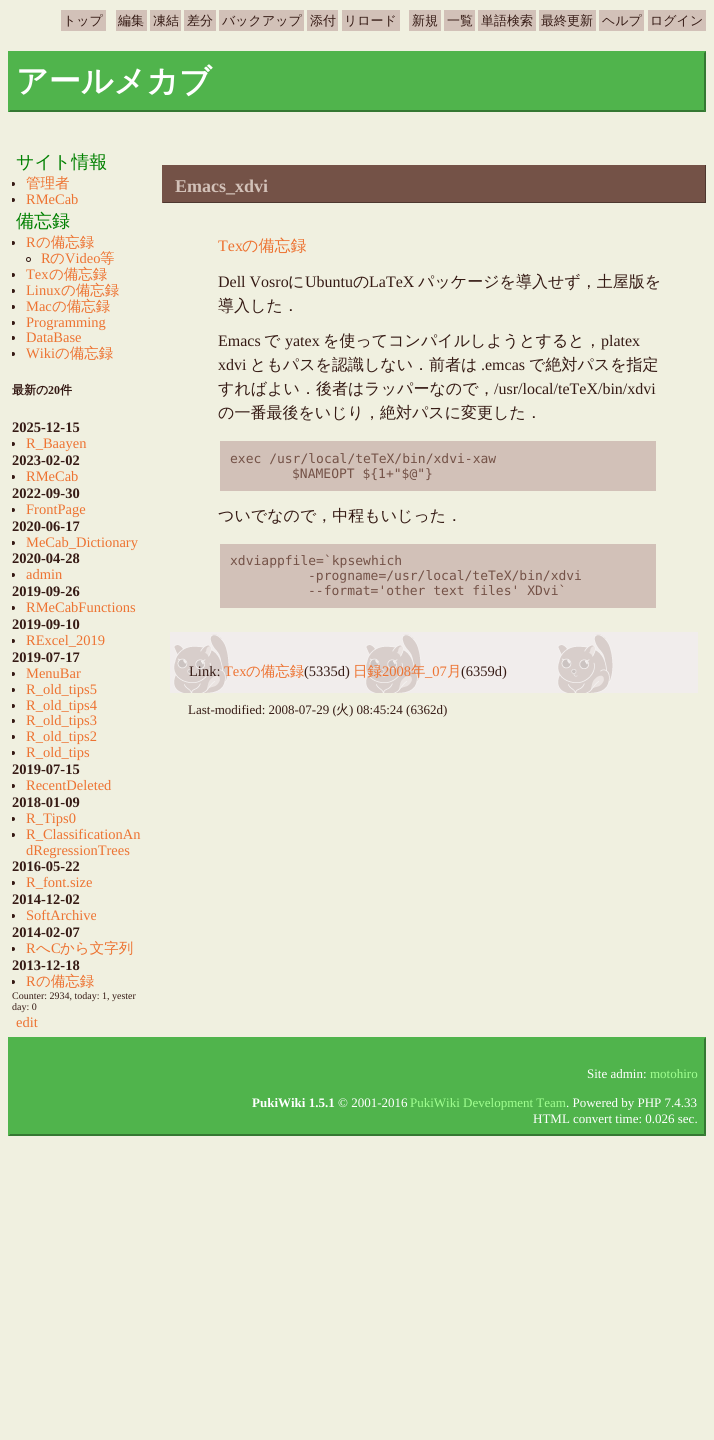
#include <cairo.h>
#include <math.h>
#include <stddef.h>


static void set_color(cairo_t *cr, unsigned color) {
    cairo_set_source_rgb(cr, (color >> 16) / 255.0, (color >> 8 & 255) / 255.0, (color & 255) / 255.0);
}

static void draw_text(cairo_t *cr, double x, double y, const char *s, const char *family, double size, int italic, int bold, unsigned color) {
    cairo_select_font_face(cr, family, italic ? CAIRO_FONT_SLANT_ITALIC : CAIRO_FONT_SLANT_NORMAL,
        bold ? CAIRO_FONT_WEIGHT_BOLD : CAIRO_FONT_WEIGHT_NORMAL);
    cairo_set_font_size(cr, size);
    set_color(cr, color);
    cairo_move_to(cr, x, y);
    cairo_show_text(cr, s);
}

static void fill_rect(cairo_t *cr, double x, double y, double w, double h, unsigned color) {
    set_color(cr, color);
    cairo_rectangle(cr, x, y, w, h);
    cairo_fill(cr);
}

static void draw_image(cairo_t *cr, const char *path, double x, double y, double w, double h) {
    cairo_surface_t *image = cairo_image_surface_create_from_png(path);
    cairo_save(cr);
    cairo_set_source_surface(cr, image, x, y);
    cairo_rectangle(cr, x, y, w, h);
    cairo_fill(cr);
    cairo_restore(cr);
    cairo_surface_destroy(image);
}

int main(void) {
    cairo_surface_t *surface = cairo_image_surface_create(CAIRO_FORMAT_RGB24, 714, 1440);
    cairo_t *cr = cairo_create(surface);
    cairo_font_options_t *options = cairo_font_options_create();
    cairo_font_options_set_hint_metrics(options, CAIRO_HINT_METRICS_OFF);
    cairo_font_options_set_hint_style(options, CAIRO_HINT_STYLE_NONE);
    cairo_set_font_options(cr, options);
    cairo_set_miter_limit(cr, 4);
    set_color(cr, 0xF0F0E0);
    cairo_paint(cr);
    fill_rect(cr, 61, 10, 45, 21, 0xD2C1B8);
    draw_text(cr, 63, 25, "トップ", "WenQuanYi Zen Hei Medium", 13, 0, 0, 0x351A14);
    fill_rect(cr, 116, 10, 31, 21, 0xD2C1B8);
    draw_text(cr, 118, 25, "編集", "WenQuanYi Zen Hei Medium", 13, 0, 0, 0x351A14);
    fill_rect(cr, 150, 10, 31, 21, 0xD2C1B8);
    draw_text(cr, 153, 25, "凍結", "WenQuanYi Zen Hei Medium", 13, 0, 0, 0x351A14);
    fill_rect(cr, 184, 10, 32, 21, 0xD2C1B8);
    draw_text(cr, 187, 25, "差分", "WenQuanYi Zen Hei Medium", 13, 0, 0, 0x351A14);
    fill_rect(cr, 219, 10, 85, 21, 0xD2C1B8);
    draw_text(cr, 222, 25, "バックアップ", "WenQuanYi Zen Hei Medium", 13, 0, 0, 0x351A14);
    fill_rect(cr, 307, 10, 31, 21, 0xD2C1B8);
    draw_text(cr, 310, 25, "添付", "WenQuanYi Zen Hei Medium", 13, 0, 0, 0x351A14);
    fill_rect(cr, 342, 10, 58, 21, 0xD2C1B8);
    draw_text(cr, 344, 25, "リロード", "WenQuanYi Zen Hei Medium", 13, 0, 0, 0x351A14);
    fill_rect(cr, 409, 10, 32, 21, 0xD2C1B8);
    draw_text(cr, 412, 25, "新規", "WenQuanYi Zen Hei Medium", 13, 0, 0, 0x351A14);
    fill_rect(cr, 444, 10, 31, 21, 0xD2C1B8);
    draw_text(cr, 447, 25, "一覧", "WenQuanYi Zen Hei Medium", 13, 0, 0, 0x351A14);
    fill_rect(cr, 478, 10, 58, 21, 0xD2C1B8);
    draw_text(cr, 481, 25, "単語検索", "WenQuanYi Zen Hei Medium", 13, 0, 0, 0x351A14);
    fill_rect(cr, 539, 10, 57, 21, 0xD2C1B8);
    draw_text(cr, 541, 25, "最終更新", "WenQuanYi Zen Hei Medium", 13, 0, 0, 0x351A14);
    fill_rect(cr, 599, 10, 45, 21, 0xD2C1B8);
    draw_text(cr, 602, 25, "ヘルプ", "WenQuanYi Zen Hei Medium", 13, 0, 0, 0x351A14);
    fill_rect(cr, 648, 10, 58, 21, 0xD2C1B8);
    draw_text(cr, 650, 25, "ログイン", "WenQuanYi Zen Hei Medium", 13, 0, 0, 0x351A14);
    fill_rect(cr, 8, 51, 698, 61, 0x50B44C);
    set_color(cr, 0x357833);
    cairo_new_path(cr);
    cairo_move_to(cr, 706, 51);
    cairo_line_to(cr, 706, 112);
    cairo_line_to(cr, 704, 110);
    cairo_line_to(cr, 704, 53);
    cairo_close_path(cr);
    cairo_fill(cr);
    cairo_new_path(cr);
    cairo_move_to(cr, 706, 112);
    cairo_line_to(cr, 8, 112);
    cairo_line_to(cr, 10, 110);
    cairo_line_to(cr, 704, 110);
    cairo_close_path(cr);
    cairo_fill(cr);
    set_color(cr, 0x50B44C);
    cairo_new_path(cr);
    cairo_move_to(cr, 8, 112);
    cairo_line_to(cr, 8, 51);
    cairo_line_to(cr, 10, 53);
    cairo_line_to(cr, 10, 110);
    cairo_close_path(cr);
    cairo_fill(cr);
    draw_text(cr, 16, 92, "アールメカブ", "WenQuanYi Zen Hei", 32, 0, 1, 0xFFFFFF);
    draw_text(cr, 16, 168, "サイト情報", "WenQuanYi Zen Hei Medium", 18, 0, 0, 0x008000);
    cairo_save(cr);
    cairo_rectangle(cr, 12, 149, 130, 884);
    cairo_clip(cr);
    set_color(cr, 0x351A14);
    cairo_arc(cr, 13, 184, 2, 0, 2 * M_PI);
    cairo_fill(cr);
    cairo_restore(cr);
    draw_text(cr, 26, 188, "管理者", "WenQuanYi Zen Hei Medium", 14.5, 0, 0, 0xED7332);
    cairo_save(cr);
    cairo_rectangle(cr, 12, 149, 130, 884);
    cairo_clip(cr);
    set_color(cr, 0x351A14);
    cairo_arc(cr, 13, 200, 2, 0, 2 * M_PI);
    cairo_fill(cr);
    cairo_restore(cr);
    draw_text(cr, 26, 204, "RMeCab", "Liberation Serif", 14.5, 0, 0, 0xED7332);
    draw_text(cr, 16, 227, "備忘録", "WenQuanYi Zen Hei Medium", 18, 0, 0, 0x008000);
    cairo_save(cr);
    cairo_rectangle(cr, 12, 149, 130, 884);
    cairo_clip(cr);
    set_color(cr, 0x351A14);
    cairo_arc(cr, 13, 243, 2, 0, 2 * M_PI);
    cairo_fill(cr);
    cairo_restore(cr);
    draw_text(cr, 26, 247, "R", "Liberation Serif", 14.5, 0, 0, 0xED7332);
    draw_text(cr, 36, 247, "の備忘録", "WenQuanYi Zen Hei Medium", 14.5, 0, 0, 0xED7332);
    cairo_new_path(cr);
    cairo_arc(cr, 28.5, 259.5, 2, 0, 2 * M_PI);
    set_color(cr, 0x351A14);
    cairo_set_line_width(cr, 1);
    cairo_stroke(cr);
    draw_text(cr, 41, 263, "R", "Liberation Serif", 14.5, 0, 0, 0xED7332);
    draw_text(cr, 50, 263, "の", "WenQuanYi Zen Hei Medium", 14.5, 0, 0, 0xED7332);
    draw_text(cr, 65, 263, "Video", "Liberation Serif", 14.5, 0, 0, 0xED7332);
    draw_text(cr, 100, 263, "等", "WenQuanYi Zen Hei Medium", 14.5, 0, 0, 0xED7332);
    cairo_save(cr);
    cairo_rectangle(cr, 12, 149, 130, 884);
    cairo_clip(cr);
    set_color(cr, 0x351A14);
    cairo_arc(cr, 13, 275, 2, 0, 2 * M_PI);
    cairo_fill(cr);
    cairo_restore(cr);
    draw_text(cr, 26, 279, "Tex", "Liberation Serif", 14.5, 0, 0, 0xED7332);
    draw_text(cr, 49, 279, "の備忘録", "WenQuanYi Zen Hei Medium", 14.5, 0, 0, 0xED7332);
    cairo_save(cr);
    cairo_rectangle(cr, 12, 149, 130, 884);
    cairo_clip(cr);
    set_color(cr, 0x351A14);
    cairo_arc(cr, 13, 291, 2, 0, 2 * M_PI);
    cairo_fill(cr);
    cairo_restore(cr);
    draw_text(cr, 26, 295, "Linux", "Liberation Serif", 14.5, 0, 0, 0xED7332);
    draw_text(cr, 61, 295, "の備忘録", "WenQuanYi Zen Hei Medium", 14.5, 0, 0, 0xED7332);
    cairo_save(cr);
    cairo_rectangle(cr, 12, 149, 130, 884);
    cairo_clip(cr);
    set_color(cr, 0x351A14);
    cairo_arc(cr, 13, 307, 2, 0, 2 * M_PI);
    cairo_fill(cr);
    cairo_restore(cr);
    draw_text(cr, 26, 311, "Mac", "Liberation Serif", 14.5, 0, 0, 0xED7332);
    draw_text(cr, 52, 311, "の備忘録", "WenQuanYi Zen Hei Medium", 14.5, 0, 0, 0xED7332);
    cairo_save(cr);
    cairo_rectangle(cr, 12, 149, 130, 884);
    cairo_clip(cr);
    set_color(cr, 0x351A14);
    cairo_arc(cr, 13, 323, 2, 0, 2 * M_PI);
    cairo_fill(cr);
    cairo_restore(cr);
    draw_text(cr, 26, 327, "Programming", "Liberation Serif", 14.5, 0, 0, 0xED7332);
    cairo_save(cr);
    cairo_rectangle(cr, 12, 149, 130, 884);
    cairo_clip(cr);
    set_color(cr, 0x351A14);
    cairo_arc(cr, 13, 338, 2, 0, 2 * M_PI);
    cairo_fill(cr);
    cairo_restore(cr);
    draw_text(cr, 26, 342, "DataBase", "Liberation Serif", 14.5, 0, 0, 0xED7332);
    cairo_save(cr);
    cairo_rectangle(cr, 12, 149, 130, 884);
    cairo_clip(cr);
    set_color(cr, 0x351A14);
    cairo_arc(cr, 13, 354, 2, 0, 2 * M_PI);
    cairo_fill(cr);
    cairo_restore(cr);
    draw_text(cr, 26, 358, "Wiki", "Liberation Serif", 14.5, 0, 0, 0xED7332);
    draw_text(cr, 55, 358, "の備忘録", "WenQuanYi Zen Hei Medium", 14.5, 0, 0, 0xED7332);
    draw_text(cr, 12, 394, "最新の", "WenQuanYi Zen Hei", 12, 0, 1, 0x351A14);
    draw_text(cr, 48, 394, "20", "Liberation Serif", 12, 0, 1, 0x351A14);
    draw_text(cr, 60, 394, "件", "WenQuanYi Zen Hei", 12, 0, 1, 0x351A14);
    draw_text(cr, 12, 432, "2025-12-15", "Liberation Serif", 14.5, 0, 1, 0x351A14);
    cairo_save(cr);
    cairo_rectangle(cr, 12, 149, 130, 884);
    cairo_clip(cr);
    cairo_arc(cr, 13, 444, 2, 0, 2 * M_PI);
    cairo_fill(cr);
    cairo_restore(cr);
    draw_text(cr, 26, 448, "R_Baayen", "Liberation Serif", 14.5, 0, 0, 0xED7332);
    draw_text(cr, 12, 465, "2023-02-02", "Liberation Serif", 14.5, 0, 1, 0x351A14);
    cairo_save(cr);
    cairo_rectangle(cr, 12, 149, 130, 884);
    cairo_clip(cr);
    cairo_arc(cr, 13, 477, 2, 0, 2 * M_PI);
    cairo_fill(cr);
    cairo_restore(cr);
    draw_text(cr, 26, 481, "RMeCab", "Liberation Serif", 14.5, 0, 0, 0xED7332);
    draw_text(cr, 12, 498, "2022-09-30", "Liberation Serif", 14.5, 0, 1, 0x351A14);
    cairo_save(cr);
    cairo_rectangle(cr, 12, 149, 130, 884);
    cairo_clip(cr);
    cairo_arc(cr, 13, 510, 2, 0, 2 * M_PI);
    cairo_fill(cr);
    cairo_restore(cr);
    draw_text(cr, 26, 514, "FrontPage", "Liberation Serif", 14.5, 0, 0, 0xED7332);
    draw_text(cr, 12, 531, "2020-06-17", "Liberation Serif", 14.5, 0, 1, 0x351A14);
    cairo_save(cr);
    cairo_rectangle(cr, 12, 149, 130, 884);
    cairo_clip(cr);
    cairo_arc(cr, 13, 543, 2, 0, 2 * M_PI);
    cairo_fill(cr);
    cairo_restore(cr);
    draw_text(cr, 26, 547, "MeCab_Dictionary", "Liberation Serif", 14.5, 0, 0, 0xED7332);
    draw_text(cr, 12, 563, "2020-04-28", "Liberation Serif", 14.5, 0, 1, 0x351A14);
    cairo_save(cr);
    cairo_rectangle(cr, 12, 149, 130, 884);
    cairo_clip(cr);
    cairo_arc(cr, 13, 575, 2, 0, 2 * M_PI);
    cairo_fill(cr);
    cairo_restore(cr);
    draw_text(cr, 26, 579, "admin", "Liberation Serif", 14.5, 0, 0, 0xED7332);
    draw_text(cr, 12, 596, "2019-09-26", "Liberation Serif", 14.5, 0, 1, 0x351A14);
    cairo_save(cr);
    cairo_rectangle(cr, 12, 149, 130, 884);
    cairo_clip(cr);
    cairo_arc(cr, 13, 608, 2, 0, 2 * M_PI);
    cairo_fill(cr);
    cairo_restore(cr);
    draw_text(cr, 26, 612, "RMeCabFunctions", "Liberation Serif", 14.5, 0, 0, 0xED7332);
    draw_text(cr, 12, 629, "2019-09-10", "Liberation Serif", 14.5, 0, 1, 0x351A14);
    cairo_save(cr);
    cairo_rectangle(cr, 12, 149, 130, 884);
    cairo_clip(cr);
    cairo_arc(cr, 13, 641, 2, 0, 2 * M_PI);
    cairo_fill(cr);
    cairo_restore(cr);
    draw_text(cr, 26, 645, "RExcel_2019", "Liberation Serif", 14.5, 0, 0, 0xED7332);
    draw_text(cr, 12, 662, "2019-07-17", "Liberation Serif", 14.5, 0, 1, 0x351A14);
    cairo_save(cr);
    cairo_rectangle(cr, 12, 149, 130, 884);
    cairo_clip(cr);
    cairo_arc(cr, 13, 674, 2, 0, 2 * M_PI);
    cairo_fill(cr);
    cairo_restore(cr);
    draw_text(cr, 26, 678, "MenuBar", "Liberation Serif", 14.5, 0, 0, 0xED7332);
    cairo_save(cr);
    cairo_rectangle(cr, 12, 149, 130, 884);
    cairo_clip(cr);
    set_color(cr, 0x351A14);
    cairo_arc(cr, 13, 690, 2, 0, 2 * M_PI);
    cairo_fill(cr);
    cairo_restore(cr);
    draw_text(cr, 26, 694, "R_old_tips5", "Liberation Serif", 14.5, 0, 0, 0xED7332);
    cairo_save(cr);
    cairo_rectangle(cr, 12, 149, 130, 884);
    cairo_clip(cr);
    set_color(cr, 0x351A14);
    cairo_arc(cr, 13, 706, 2, 0, 2 * M_PI);
    cairo_fill(cr);
    cairo_restore(cr);
    draw_text(cr, 26, 710, "R_old_tips4", "Liberation Serif", 14.5, 0, 0, 0xED7332);
    cairo_save(cr);
    cairo_rectangle(cr, 12, 149, 130, 884);
    cairo_clip(cr);
    set_color(cr, 0x351A14);
    cairo_arc(cr, 13, 721, 2, 0, 2 * M_PI);
    cairo_fill(cr);
    cairo_restore(cr);
    draw_text(cr, 26, 725, "R_old_tips3", "Liberation Serif", 14.5, 0, 0, 0xED7332);
    cairo_save(cr);
    cairo_rectangle(cr, 12, 149, 130, 884);
    cairo_clip(cr);
    set_color(cr, 0x351A14);
    cairo_arc(cr, 13, 737, 2, 0, 2 * M_PI);
    cairo_fill(cr);
    cairo_restore(cr);
    draw_text(cr, 26, 741, "R_old_tips2", "Liberation Serif", 14.5, 0, 0, 0xED7332);
    cairo_save(cr);
    cairo_rectangle(cr, 12, 149, 130, 884);
    cairo_clip(cr);
    set_color(cr, 0x351A14);
    cairo_arc(cr, 13, 753, 2, 0, 2 * M_PI);
    cairo_fill(cr);
    cairo_restore(cr);
    draw_text(cr, 26, 757, "R_old_tips", "Liberation Serif", 14.5, 0, 0, 0xED7332);
    draw_text(cr, 12, 774, "2019-07-15", "Liberation Serif", 14.5, 0, 1, 0x351A14);
    cairo_save(cr);
    cairo_rectangle(cr, 12, 149, 130, 884);
    cairo_clip(cr);
    cairo_arc(cr, 13, 786, 2, 0, 2 * M_PI);
    cairo_fill(cr);
    cairo_restore(cr);
    draw_text(cr, 26, 790, "RecentDeleted", "Liberation Serif", 14.5, 0, 0, 0xED7332);
    draw_text(cr, 12, 807, "2018-01-09", "Liberation Serif", 14.5, 0, 1, 0x351A14);
    cairo_save(cr);
    cairo_rectangle(cr, 12, 149, 130, 884);
    cairo_clip(cr);
    cairo_arc(cr, 13, 819, 2, 0, 2 * M_PI);
    cairo_fill(cr);
    cairo_restore(cr);
    draw_text(cr, 26, 823, "R_Tips0", "Liberation Serif", 14.5, 0, 0, 0xED7332);
    cairo_save(cr);
    cairo_rectangle(cr, 12, 149, 130, 884);
    cairo_clip(cr);
    set_color(cr, 0x351A14);
    cairo_arc(cr, 13, 835, 2, 0, 2 * M_PI);
    cairo_fill(cr);
    cairo_restore(cr);
    draw_text(cr, 26, 839, "R_ClassificationAn", "Liberation Serif", 14.5, 0, 0, 0xED7332);
    draw_text(cr, 26, 855, "dRegressionTrees", "Liberation Serif", 14.5, 0, 0, 0xED7332);
    draw_text(cr, 12, 871, "2016-05-22", "Liberation Serif", 14.5, 0, 1, 0x351A14);
    cairo_save(cr);
    cairo_rectangle(cr, 12, 149, 130, 884);
    cairo_clip(cr);
    cairo_arc(cr, 13, 883, 2, 0, 2 * M_PI);
    cairo_fill(cr);
    cairo_restore(cr);
    draw_text(cr, 26, 887, "R_font.size", "Liberation Serif", 14.5, 0, 0, 0xED7332);
    draw_text(cr, 12, 904, "2014-12-02", "Liberation Serif", 14.5, 0, 1, 0x351A14);
    cairo_save(cr);
    cairo_rectangle(cr, 12, 149, 130, 884);
    cairo_clip(cr);
    cairo_arc(cr, 13, 916, 2, 0, 2 * M_PI);
    cairo_fill(cr);
    cairo_restore(cr);
    draw_text(cr, 26, 920, "SoftArchive", "Liberation Serif", 14.5, 0, 0, 0xED7332);
    draw_text(cr, 12, 937, "2014-02-07", "Liberation Serif", 14.5, 0, 1, 0x351A14);
    cairo_save(cr);
    cairo_rectangle(cr, 12, 149, 130, 884);
    cairo_clip(cr);
    cairo_arc(cr, 13, 949, 2, 0, 2 * M_PI);
    cairo_fill(cr);
    cairo_restore(cr);
    draw_text(cr, 26, 953, "R", "Liberation Serif", 14.5, 0, 0, 0xED7332);
    draw_text(cr, 36, 953, "へ", "WenQuanYi Zen Hei Medium", 14.5, 0, 0, 0xED7332);
    draw_text(cr, 51, 953, "C", "Liberation Serif", 14.5, 0, 0, 0xED7332);
    draw_text(cr, 60, 953, "から文字列", "WenQuanYi Zen Hei Medium", 14.5, 0, 0, 0xED7332);
    draw_text(cr, 12, 970, "2013-12-18", "Liberation Serif", 14.5, 0, 1, 0x351A14);
    cairo_save(cr);
    cairo_rectangle(cr, 12, 149, 130, 884);
    cairo_clip(cr);
    cairo_arc(cr, 13, 982, 2, 0, 2 * M_PI);
    cairo_fill(cr);
    cairo_restore(cr);
    draw_text(cr, 26, 986, "R", "Liberation Serif", 14.5, 0, 0, 0xED7332);
    draw_text(cr, 36, 986, "の備忘録", "WenQuanYi Zen Hei Medium", 14.5, 0, 0, 0xED7332);
    draw_text(cr, 12, 999, "Counter: 2934, today: 1, yester", "Liberation Serif", 10, 0, 0, 0x351A14);
    draw_text(cr, 12, 1010, "day: 0", "Liberation Serif", 10, 0, 0, 0x351A14);
    draw_text(cr, 16, 1027, "edit", "Liberation Serif", 14.5, 0, 0, 0xED7332);
    fill_rect(cr, 163, 165, 542, 37, 0x745247);
    fill_rect(cr, 705, 165, 1, 38, 0x4D372F);
    fill_rect(cr, 162, 202, 544, 1, 0x4D372F);
    fill_rect(cr, 162, 165, 1, 38, 0x745247);
    draw_text(cr, 175, 192, "Emacs_xdvi", "Liberation Serif", 18, 0, 1, 0xD2C1B8);
    draw_text(cr, 218, 251, "Tex", "Liberation Serif", 16, 0, 0, 0xED7332);
    draw_text(cr, 242, 251, "の備忘録", "WenQuanYi Zen Hei Medium", 16, 0, 0, 0xED7332);
    draw_text(cr, 218, 287, "Dell Vosro", "Liberation Serif", 16, 0, 0, 0x351A14);
    draw_text(cr, 288, 287, "に", "WenQuanYi Zen Hei Medium", 16, 0, 0, 0x351A14);
    draw_text(cr, 305, 287, "Ubuntu", "Liberation Serif", 16, 0, 0, 0x351A14);
    draw_text(cr, 353, 287, "の", "WenQuanYi Zen Hei Medium", 16, 0, 0, 0x351A14);
    draw_text(cr, 369, 287, "LaTeX", "Liberation Serif", 16, 0, 0, 0x351A14);
    draw_text(cr, 418, 287, "パッケージを導入せず，土屋版を", "WenQuanYi Zen Hei Medium", 16, 0, 0, 0x351A14);
    draw_text(cr, 218, 311, "導入した．", "WenQuanYi Zen Hei Medium", 16, 0, 0, 0x351A14);
    draw_text(cr, 218, 346, "Emacs", "Liberation Serif", 16, 0, 0, 0x351A14);
    draw_text(cr, 264, 346, "で", "WenQuanYi Zen Hei Medium", 16, 0, 0, 0x351A14);
    draw_text(cr, 285, 346, "yatex", "Liberation Serif", 16, 0, 0, 0x351A14);
    draw_text(cr, 323, 346, "を使ってコンパイルしようとすると，", "WenQuanYi Zen Hei Medium", 16, 0, 0, 0x351A14);
    draw_text(cr, 601, 346, "platex", "Liberation Serif", 16, 0, 0, 0x351A14);
    draw_text(cr, 218, 370, "xdvi", "Liberation Serif", 16, 0, 0, 0x351A14);
    draw_text(cr, 250, 370, "ともパスを認識しない．前者は", "WenQuanYi Zen Hei Medium", 16, 0, 0, 0x351A14);
    draw_text(cr, 481, 370, ".emcas", "Liberation Serif", 16, 0, 0, 0x351A14);
    draw_text(cr, 529, 370, "で絶対パスを指定", "WenQuanYi Zen Hei Medium", 16, 0, 0, 0x351A14);
    draw_text(cr, 218, 394, "すればよい．後者はラッパーなので，", "WenQuanYi Zen Hei Medium", 16, 0, 0, 0x351A14);
    draw_text(cr, 494, 394, "/usr/local/teTeX/bin/xdvi", "Liberation Serif", 16, 0, 0, 0x351A14);
    draw_text(cr, 218, 418, "の一番最後をいじり，絶対パスに変更した．", "WenQuanYi Zen Hei Medium", 16, 0, 0, 0x351A14);
    fill_rect(cr, 220, 441, 436, 50, 0xD2C1B8);
    draw_text(cr, 230, 463, "exec /usr/local/teTeX/bin/xdvi-xaw", "DejaVu Sans Mono", 13, 0, 0, 0x745247);
    draw_text(cr, 292, 478, "$NAMEOPT ${1+\"$@\"}", "DejaVu Sans Mono", 13, 0, 0, 0x745247);
    draw_text(cr, 218, 521, "ついでなので，中程もいじった．", "WenQuanYi Zen Hei Medium", 16, 0, 0, 0x351A14);
    fill_rect(cr, 220, 544, 436, 64, 0xD2C1B8);
    draw_text(cr, 230, 565, "xdviappfile=`kpsewhich", "DejaVu Sans Mono", 13, 0, 0, 0x745247);
    draw_text(cr, 308, 580, "-progname=/usr/local/teTeX/bin/xdvi", "DejaVu Sans Mono", 13, 0, 0, 0x745247);
    draw_text(cr, 308, 595, "--format='other text files' XDvi`", "DejaVu Sans Mono", 13, 0, 0, 0x745247);
    draw_image(cr, "assets/img1.png", 170, 632, 528, 61);
    draw_text(cr, 189, 676, "Link:", "Liberation Serif", 14.5, 0, 0, 0x351A14);
    draw_text(cr, 224, 676, "Tex", "Liberation Serif", 14.5, 0, 0, 0xED7332);
    draw_text(cr, 246, 676, "の備忘録", "WenQuanYi Zen Hei Medium", 14.5, 0, 0, 0xED7332);
    draw_text(cr, 304, 676, "(5335d)", "Liberation Serif", 14.5, 0, 0, 0x351A14);
    draw_text(cr, 353, 676, "日録", "WenQuanYi Zen Hei Medium", 14.5, 0, 0, 0xED7332);
    draw_text(cr, 382, 676, "2008", "Liberation Serif", 14.5, 0, 0, 0xED7332);
    draw_text(cr, 411, 676, "年", "WenQuanYi Zen Hei Medium", 14.5, 0, 0, 0xED7332);
    draw_text(cr, 425, 676, "_07", "Liberation Serif", 14.5, 0, 0, 0xED7332);
    draw_text(cr, 447, 676, "月", "WenQuanYi Zen Hei Medium", 14.5, 0, 0, 0xED7332);
    draw_text(cr, 461, 676, "(6359d)", "Liberation Serif", 14.5, 0, 0, 0x351A14);
    draw_text(cr, 188, 714, "Last-modified: 2008-07-29 (", "Liberation Serif", 13, 0, 0, 0x351A14);
    draw_text(cr, 336, 714, "火", "WenQuanYi Zen Hei Medium", 13, 0, 0, 0x351A14);
    draw_text(cr, 349, 714, ") 08:45:24 (6362d)", "Liberation Serif", 13, 0, 0, 0x351A14);
    fill_rect(cr, 8, 1037, 698, 99, 0x50B44C);
    set_color(cr, 0x357833);
    cairo_new_path(cr);
    cairo_move_to(cr, 706, 1037);
    cairo_line_to(cr, 706, 1136);
    cairo_line_to(cr, 704, 1134);
    cairo_line_to(cr, 704, 1039);
    cairo_close_path(cr);
    cairo_fill(cr);
    cairo_new_path(cr);
    cairo_move_to(cr, 706, 1136);
    cairo_line_to(cr, 8, 1136);
    cairo_line_to(cr, 10, 1134);
    cairo_line_to(cr, 704, 1134);
    cairo_close_path(cr);
    cairo_fill(cr);
    set_color(cr, 0x50B44C);
    cairo_new_path(cr);
    cairo_move_to(cr, 8, 1136);
    cairo_line_to(cr, 8, 1037);
    cairo_line_to(cr, 10, 1039);
    cairo_line_to(cr, 10, 1134);
    cairo_close_path(cr);
    cairo_fill(cr);
    draw_text(cr, 587, 1078, "Site admin:", "Liberation Serif", 13, 0, 0, 0xFFFFFF);
    draw_text(cr, 650, 1078, "motohiro", "Liberation Serif", 13, 0, 0, 0xA0FF90);
    draw_text(cr, 252, 1107, "PukiWiki 1.5.1", "Liberation Serif", 13, 0, 1, 0xFFFFFF);
    draw_text(cr, 338, 1107, "© 2001-2016", "Liberation Serif", 13, 0, 0, 0xFFFFFF);
    draw_text(cr, 410, 1107, "PukiWiki Development Team", "Liberation Serif", 13, 0, 0, 0xA0FF90);
    draw_text(cr, 566, 1107, ". Powered by PHP 7.4.33", "Liberation Serif", 13, 0, 0, 0xFFFFFF);
    draw_text(cr, 533, 1123, "HTML convert time: 0.026 sec.", "Liberation Serif", 13, 0, 0, 0xFFFFFF);
    cairo_surface_write_to_png(surface, "output.png");
    cairo_font_options_destroy(options);
    cairo_destroy(cr);
    cairo_surface_destroy(surface);
    return 0;
}
